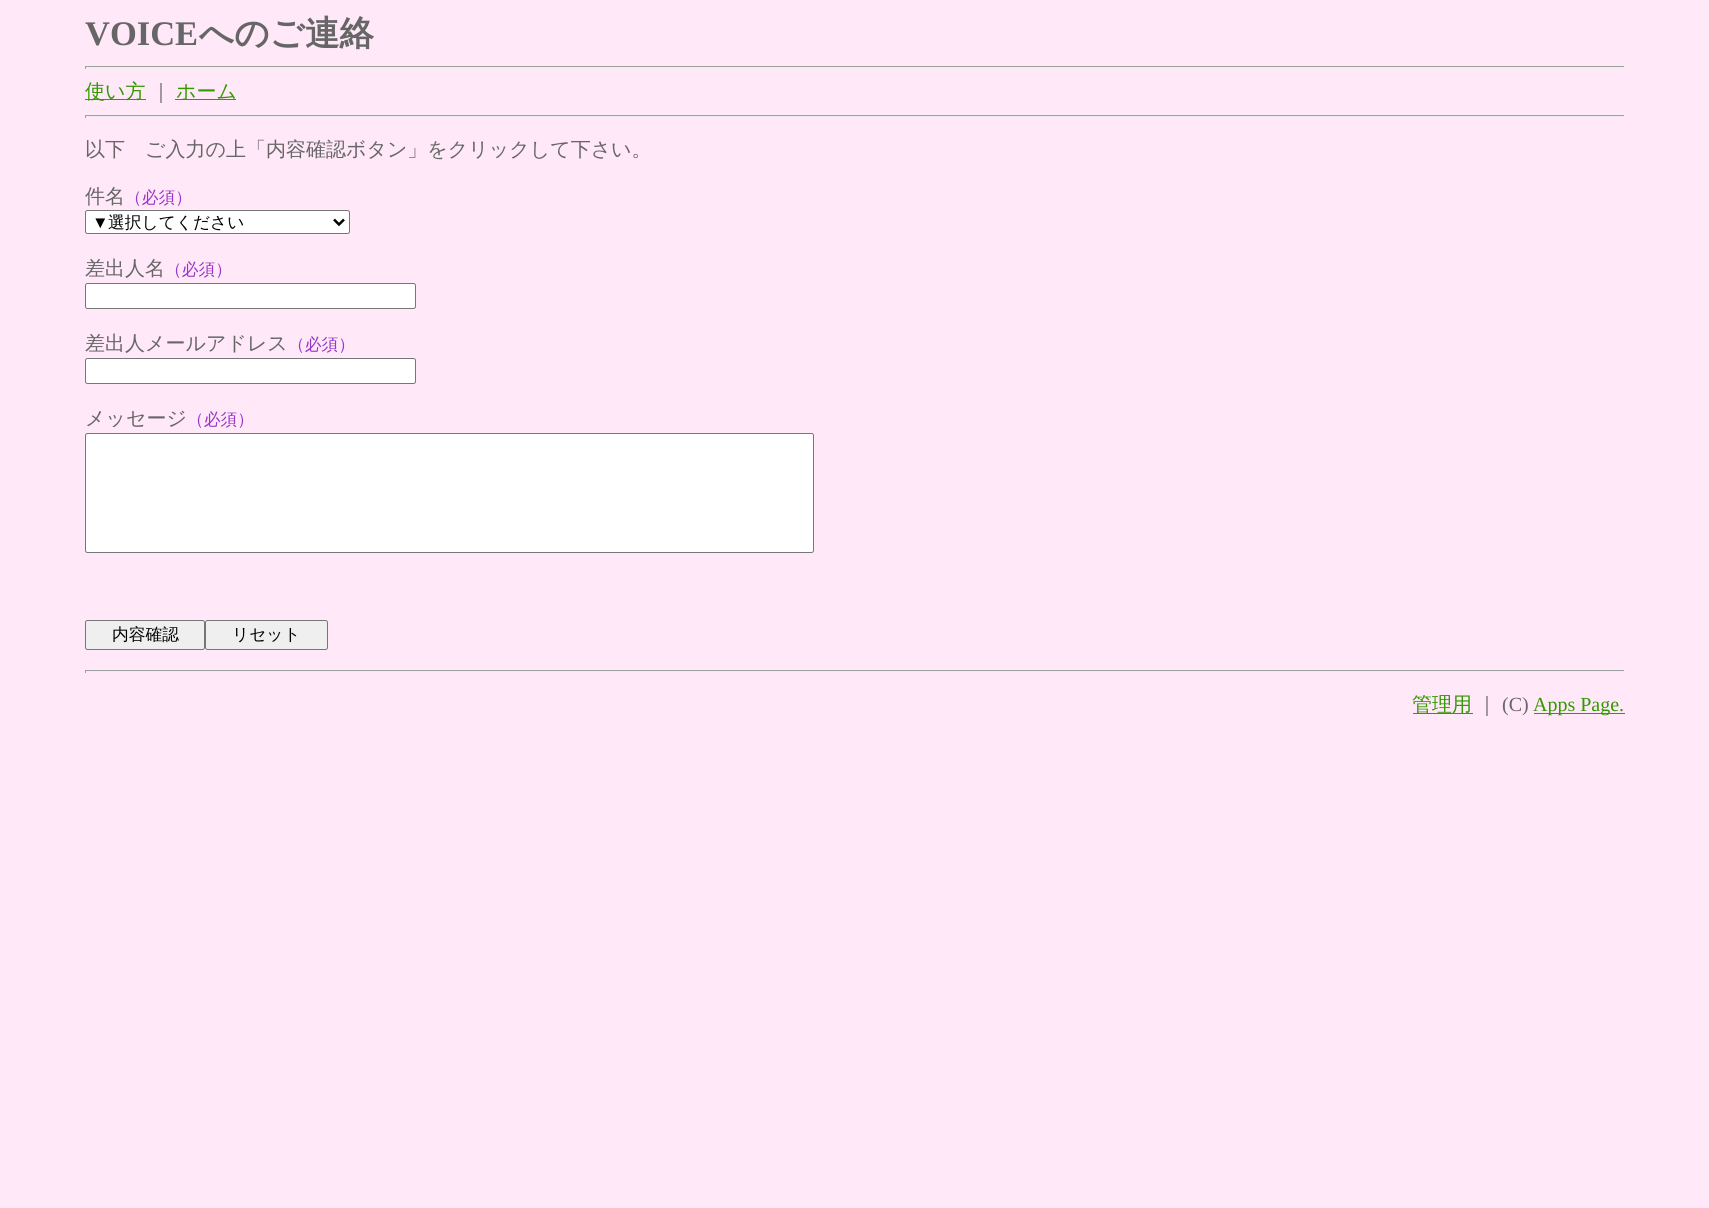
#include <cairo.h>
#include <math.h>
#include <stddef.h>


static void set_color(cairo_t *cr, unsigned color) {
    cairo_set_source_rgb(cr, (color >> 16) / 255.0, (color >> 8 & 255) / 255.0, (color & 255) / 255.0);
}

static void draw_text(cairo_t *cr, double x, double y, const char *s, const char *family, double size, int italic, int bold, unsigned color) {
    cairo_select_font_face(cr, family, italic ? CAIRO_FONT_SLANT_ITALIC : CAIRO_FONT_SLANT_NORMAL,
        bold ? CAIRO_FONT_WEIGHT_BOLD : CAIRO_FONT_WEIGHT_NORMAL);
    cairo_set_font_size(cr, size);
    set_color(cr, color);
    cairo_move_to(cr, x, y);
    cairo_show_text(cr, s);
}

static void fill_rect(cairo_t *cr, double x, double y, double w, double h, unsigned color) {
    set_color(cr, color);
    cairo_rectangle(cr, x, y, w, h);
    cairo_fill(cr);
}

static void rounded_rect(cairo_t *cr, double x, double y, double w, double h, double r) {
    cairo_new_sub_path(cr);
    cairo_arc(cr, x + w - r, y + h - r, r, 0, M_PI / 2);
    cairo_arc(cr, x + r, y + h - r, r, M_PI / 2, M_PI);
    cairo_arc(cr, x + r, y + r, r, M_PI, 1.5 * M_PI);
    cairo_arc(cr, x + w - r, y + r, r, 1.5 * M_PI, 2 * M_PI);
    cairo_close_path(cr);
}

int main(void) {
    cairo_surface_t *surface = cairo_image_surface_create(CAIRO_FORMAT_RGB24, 1709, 1208);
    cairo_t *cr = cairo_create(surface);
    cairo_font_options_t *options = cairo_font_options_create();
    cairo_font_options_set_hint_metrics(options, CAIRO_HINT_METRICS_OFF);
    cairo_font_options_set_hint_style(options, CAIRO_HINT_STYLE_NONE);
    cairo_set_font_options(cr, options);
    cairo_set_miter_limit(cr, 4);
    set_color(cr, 0xFFE8F8);
    cairo_paint(cr);
    draw_text(cr, 85, 45, "VOICE", "Liberation Serif", 34.5, 0, 1, 0x666666);
    draw_text(cr, 199, 45, "へのご連絡", "WenQuanYi Zen Hei", 34.5, 0, 1, 0x666666);
    fill_rect(cr, 85, 66, 1540, 1, 0x9F9F9F);
    fill_rect(cr, 1624, 66, 1, 3, 0xEEEEEE);
    fill_rect(cr, 85, 68, 1540, 1, 0xEEEEEE);
    fill_rect(cr, 85, 66, 1, 3, 0x9F9F9F);
    fill_rect(cr, 85, 99, 61, 1, 0x339900);
    draw_text(cr, 85, 98, "使い方", "WenQuanYi Zen Hei Medium", 20, 0, 0, 0x339900);
    draw_text(cr, 151, 98, "｜", "WenQuanYi Zen Hei Medium", 20, 0, 0, 0x666666);
    fill_rect(cr, 175, 99, 61, 1, 0x339900);
    draw_text(cr, 176, 98, "ホーム", "WenQuanYi Zen Hei Medium", 20, 0, 0, 0x339900);
    fill_rect(cr, 85, 115, 1540, 1, 0x9F9F9F);
    fill_rect(cr, 1624, 115, 1, 3, 0xEEEEEE);
    fill_rect(cr, 85, 116, 1540, 1, 0xEEEEEE);
    fill_rect(cr, 85, 115, 1, 3, 0x9F9F9F);
    draw_text(cr, 85, 156, "以下　ご入力の上「内容確認ボタン」をクリックして下さい。", "WenQuanYi Zen Hei Medium", 20, 0, 0, 0x666666);
    draw_text(cr, 85, 203, "件名", "WenQuanYi Zen Hei Medium", 20, 0, 0, 0x666666);
    draw_text(cr, 125, 203, "（必須）", "WenQuanYi Zen Hei Medium", 16.75, 0, 0, 0x9933CC);
    set_color(cr, 0xFFFFFF);
    rounded_rect(cr, 85.5, 210.5, 264, 23, 2);
    cairo_fill_preserve(cr);
    set_color(cr, 0x767676);
    cairo_set_line_width(cr, 1);
    cairo_stroke(cr);
    cairo_new_path(cr);
    cairo_move_to(cr, 334, 219.5);
    cairo_line_to(cr, 339, 224.5);
    cairo_line_to(cr, 344, 219.5);
    set_color(cr, 0x000000);
    cairo_set_line_width(cr, 2.5);
    cairo_stroke(cr);
    draw_text(cr, 92, 228, "▼", "Liberation Sans", 16.75, 0, 0, 0x000000);
    draw_text(cr, 108, 228, "選択してください", "WenQuanYi Zen Hei Medium", 16.75, 0, 0, 0x000000);
    draw_text(cr, 85, 275, "差出人名", "WenQuanYi Zen Hei Medium", 20, 0, 0, 0x666666);
    draw_text(cr, 165, 275, "（必須）", "WenQuanYi Zen Hei Medium", 16.75, 0, 0, 0x9933CC);
    set_color(cr, 0xFFFFFF);
    rounded_rect(cr, 85.5, 283.5, 330, 25, 2);
    cairo_fill_preserve(cr);
    set_color(cr, 0x767676);
    cairo_set_line_width(cr, 1);
    cairo_stroke(cr);
    draw_text(cr, 85, 350, "差出人メールアドレス", "WenQuanYi Zen Hei Medium", 20, 0, 0, 0x666666);
    draw_text(cr, 288, 350, "（必須）", "WenQuanYi Zen Hei Medium", 16.75, 0, 0, 0x9933CC);
    set_color(cr, 0xFFFFFF);
    rounded_rect(cr, 85.5, 358.5, 330, 25, 2);
    cairo_fill_preserve(cr);
    set_color(cr, 0x767676);
    cairo_stroke(cr);
    draw_text(cr, 85, 425, "メッセージ", "WenQuanYi Zen Hei Medium", 20, 0, 0, 0x666666);
    draw_text(cr, 187, 425, "（必須）", "WenQuanYi Zen Hei Medium", 16.75, 0, 0, 0x9933CC);
    set_color(cr, 0xFFFFFF);
    rounded_rect(cr, 85.5, 433.5, 728, 119, 2);
    cairo_fill_preserve(cr);
    set_color(cr, 0x767676);
    cairo_stroke(cr);
    set_color(cr, 0xEFEFEF);
    rounded_rect(cr, 85.5, 620.5, 119, 29, 2);
    cairo_fill_preserve(cr);
    set_color(cr, 0x767676);
    cairo_stroke(cr);
    draw_text(cr, 112, 640, "内容確認", "WenQuanYi Zen Hei Medium", 16.75, 0, 0, 0x000000);
    set_color(cr, 0xEFEFEF);
    rounded_rect(cr, 205.5, 620.5, 122, 29, 2);
    cairo_fill_preserve(cr);
    set_color(cr, 0x767676);
    cairo_stroke(cr);
    draw_text(cr, 232, 640, "リセット", "WenQuanYi Zen Hei Medium", 16.75, 0, 0, 0x000000);
    fill_rect(cr, 85, 670, 1540, 1, 0x9F9F9F);
    fill_rect(cr, 1624, 670, 1, 3, 0xEEEEEE);
    fill_rect(cr, 85, 671, 1540, 1, 0xEEEEEE);
    fill_rect(cr, 85, 670, 1, 3, 0x9F9F9F);
    fill_rect(cr, 1413, 713, 60, 1, 0x339900);
    draw_text(cr, 1412, 711, "管理用", "WenQuanYi Zen Hei Medium", 20, 0, 0, 0x339900);
    draw_text(cr, 1477, 711, "｜", "WenQuanYi Zen Hei Medium", 20, 0, 0, 0x666666);
    draw_text(cr, 1502, 711, "(C)", "Liberation Serif", 20, 0, 0, 0x666666);
    fill_rect(cr, 1534, 713, 91, 1, 0x339900);
    draw_text(cr, 1533, 711, "Apps Page.", "Liberation Serif", 20, 0, 0, 0x339900);
    cairo_surface_write_to_png(surface, "output.png");
    cairo_font_options_destroy(options);
    cairo_destroy(cr);
    cairo_surface_destroy(surface);
    return 0;
}
